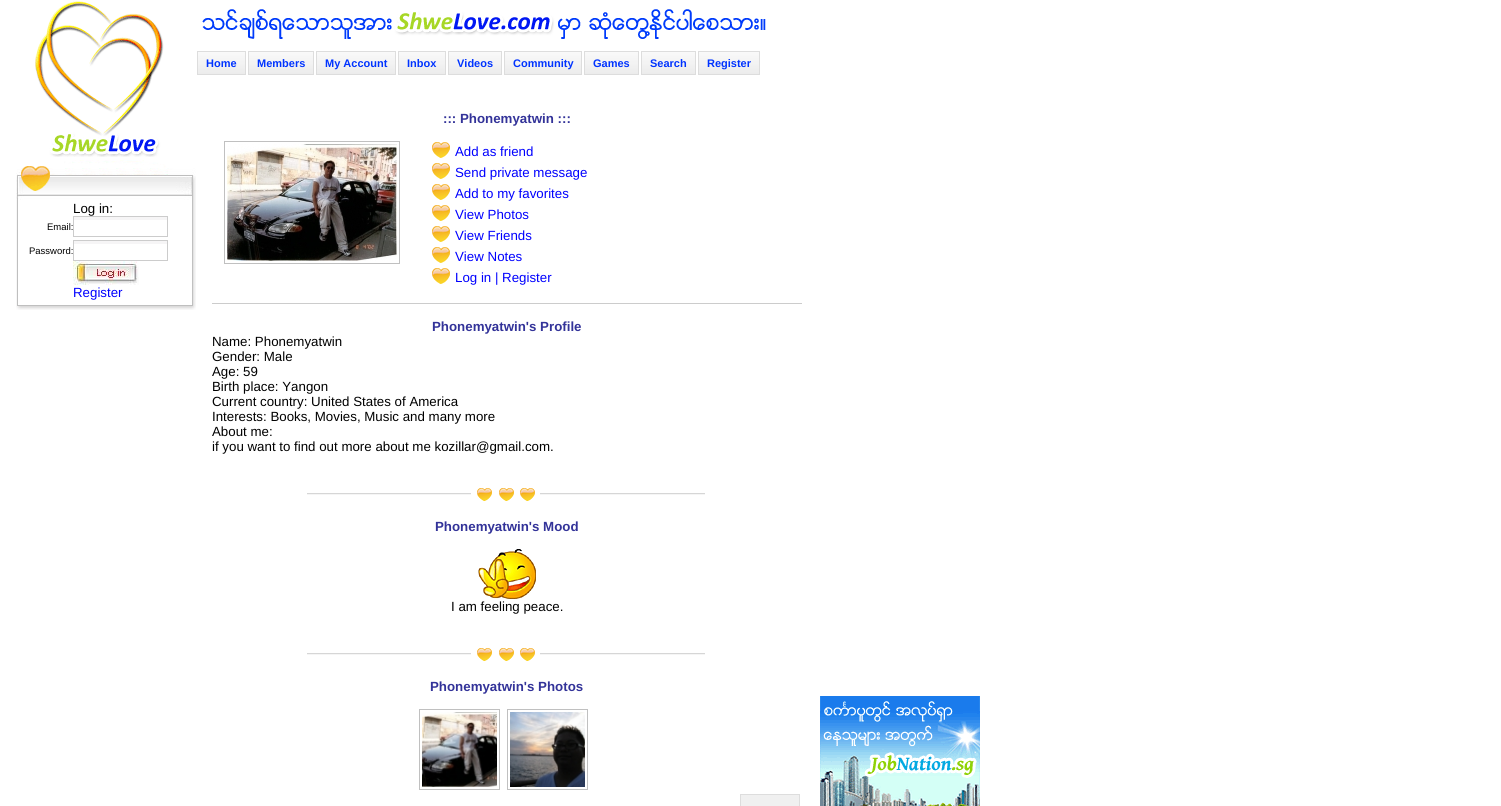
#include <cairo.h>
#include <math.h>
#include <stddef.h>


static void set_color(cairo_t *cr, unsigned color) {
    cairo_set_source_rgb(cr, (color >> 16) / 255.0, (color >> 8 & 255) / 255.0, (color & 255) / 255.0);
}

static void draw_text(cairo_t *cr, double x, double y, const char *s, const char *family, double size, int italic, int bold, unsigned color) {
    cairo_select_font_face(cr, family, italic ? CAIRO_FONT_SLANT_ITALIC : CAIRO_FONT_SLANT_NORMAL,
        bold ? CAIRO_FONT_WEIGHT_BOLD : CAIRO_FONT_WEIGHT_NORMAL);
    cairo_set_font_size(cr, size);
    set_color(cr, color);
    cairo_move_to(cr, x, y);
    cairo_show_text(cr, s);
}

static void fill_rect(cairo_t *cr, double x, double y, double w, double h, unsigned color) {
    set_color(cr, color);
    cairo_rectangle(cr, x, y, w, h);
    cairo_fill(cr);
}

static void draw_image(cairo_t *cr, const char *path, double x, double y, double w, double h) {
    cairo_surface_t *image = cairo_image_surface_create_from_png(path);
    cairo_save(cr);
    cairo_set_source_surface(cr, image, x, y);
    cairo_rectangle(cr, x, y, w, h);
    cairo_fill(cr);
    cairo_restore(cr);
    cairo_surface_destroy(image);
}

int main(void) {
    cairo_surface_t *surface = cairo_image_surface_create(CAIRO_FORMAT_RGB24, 1501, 806);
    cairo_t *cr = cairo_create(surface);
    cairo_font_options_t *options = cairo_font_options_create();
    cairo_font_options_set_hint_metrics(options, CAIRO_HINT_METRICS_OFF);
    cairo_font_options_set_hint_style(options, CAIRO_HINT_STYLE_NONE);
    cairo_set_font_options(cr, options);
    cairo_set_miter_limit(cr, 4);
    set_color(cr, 0xFFFFFF);
    cairo_paint(cr);
    draw_image(cr, "assets/img1.png", 35, 1, 129, 156);
    draw_image(cr, "assets/img2.png", 16, 160, 180, 41);
    draw_image(cr, "assets/img3.png", 16, 201, 180, 99);
    draw_text(cr, 73, 213, "Log in:", "Liberation Sans", 13.3, 0, 0, 0x000000);
    draw_text(cr, 47, 230, "Email:", "Liberation Sans", 9.5, 0, 0, 0x000000);
    fill_rect(cr, 73, 217, 95, 3, 0xF6F5F6);
    cairo_rectangle(cr, 73.5, 216.5, 94, 20);
    set_color(cr, 0xCCCCCC);
    cairo_set_line_width(cr, 1);
    cairo_stroke(cr);
    draw_text(cr, 29, 254, "Password:", "Liberation Sans", 9.5, 0, 0, 0x000000);
    fill_rect(cr, 73, 241, 95, 3, 0xF6F5F6);
    cairo_rectangle(cr, 73.5, 240.5, 94, 20);
    set_color(cr, 0xCCCCCC);
    cairo_stroke(cr);
    draw_image(cr, "assets/img4.png", 73, 261, 66, 24);
    draw_text(cr, 73, 297, "Register", "Liberation Sans", 13.3, 0, 0, 0x0000FF);
    draw_image(cr, "assets/img5.png", 16, 300, 180, 10);
    draw_image(cr, "assets/img6.png", 202, 9, 564, 30);
    draw_image(cr, "assets/img7.png", 198, 52, 47, 22);
    draw_image(cr, "assets/img8.png", 249, 52, 64, 22);
    draw_image(cr, "assets/img9.png", 317, 52, 78, 22);
    draw_image(cr, "assets/img10.png", 399, 52, 46, 22);
    draw_image(cr, "assets/img11.png", 449, 52, 52, 22);
    draw_image(cr, "assets/img12.png", 505, 52, 76, 22);
    draw_image(cr, "assets/img13.png", 585, 52, 53, 22);
    draw_image(cr, "assets/img13.png", 642, 52, 53, 22);
    draw_image(cr, "assets/img14.png", 699, 52, 60, 22);
    cairo_rectangle(cr, 197.5, 51.5, 48, 23);
    set_color(cr, 0xDDDDDD);
    cairo_stroke(cr);
    draw_text(cr, 206, 67, "Home", "Liberation Sans", 11, 0, 1, 0x0033FF);
    cairo_rectangle(cr, 248.5, 51.5, 65, 23);
    set_color(cr, 0xDDDDDD);
    cairo_stroke(cr);
    draw_text(cr, 257, 67, "Members", "Liberation Sans", 11, 0, 1, 0x0033FF);
    cairo_rectangle(cr, 316.5, 51.5, 79, 23);
    set_color(cr, 0xDDDDDD);
    cairo_stroke(cr);
    draw_text(cr, 325, 67, "My Account", "Liberation Sans", 11, 0, 1, 0x0033FF);
    cairo_rectangle(cr, 398.5, 51.5, 47, 23);
    set_color(cr, 0xDDDDDD);
    cairo_stroke(cr);
    draw_text(cr, 407, 67, "Inbox", "Liberation Sans", 11, 0, 1, 0x0033FF);
    cairo_rectangle(cr, 448.5, 51.5, 53, 23);
    set_color(cr, 0xDDDDDD);
    cairo_stroke(cr);
    draw_text(cr, 457, 67, "Videos", "Liberation Sans", 11, 0, 1, 0x0033FF);
    cairo_rectangle(cr, 504.5, 51.5, 77, 23);
    set_color(cr, 0xDDDDDD);
    cairo_stroke(cr);
    draw_text(cr, 513, 67, "Community", "Liberation Sans", 11, 0, 1, 0x0033FF);
    cairo_rectangle(cr, 584.5, 51.5, 54, 23);
    set_color(cr, 0xDDDDDD);
    cairo_stroke(cr);
    draw_text(cr, 593, 67, "Games", "Liberation Sans", 11, 0, 1, 0x0033FF);
    cairo_rectangle(cr, 641.5, 51.5, 54, 23);
    set_color(cr, 0xDDDDDD);
    cairo_stroke(cr);
    draw_text(cr, 650, 67, "Search", "Liberation Sans", 11, 0, 1, 0x0033FF);
    cairo_rectangle(cr, 698.5, 51.5, 61, 23);
    set_color(cr, 0xDDDDDD);
    cairo_stroke(cr);
    draw_text(cr, 707, 67, "Register", "Liberation Sans", 11, 0, 1, 0x0033FF);
    draw_text(cr, 443, 123, "::: Phonemyatwin :::", "Liberation Sans", 13.3, 0, 1, 0x333399);
    cairo_rectangle(cr, 224.5, 141.5, 175, 122);
    set_color(cr, 0xC0C0C0);
    cairo_stroke(cr);
    draw_image(cr, "assets/img15.png", 227, 144, 170, 117);
    draw_image(cr, "assets/img16.png", 432, 142, 18, 16);
    draw_text(cr, 455, 156, "Add as friend", "Liberation Sans", 13.3, 0, 0, 0x0000FF);
    draw_image(cr, "assets/img16.png", 432, 163, 18, 16);
    draw_text(cr, 455, 177, "Send private message", "Liberation Sans", 13.3, 0, 0, 0x0000FF);
    draw_image(cr, "assets/img16.png", 432, 184, 18, 16);
    draw_text(cr, 455, 198, "Add to my favorites", "Liberation Sans", 13.3, 0, 0, 0x0000FF);
    draw_image(cr, "assets/img16.png", 432, 205, 18, 16);
    draw_text(cr, 455, 219, "View Photos", "Liberation Sans", 13.3, 0, 0, 0x0000FF);
    draw_image(cr, "assets/img16.png", 432, 226, 18, 16);
    draw_text(cr, 455, 240, "View Friends", "Liberation Sans", 13.3, 0, 0, 0x0000FF);
    draw_image(cr, "assets/img16.png", 432, 247, 18, 16);
    draw_text(cr, 455, 261, "View Notes", "Liberation Sans", 13.3, 0, 0, 0x0000FF);
    draw_image(cr, "assets/img16.png", 432, 268, 18, 16);
    draw_text(cr, 455, 282, "Log in | Register", "Liberation Sans", 13.3, 0, 0, 0x0000FF);
    fill_rect(cr, 212, 303, 590, 1, 0xCCCCCC);
    draw_text(cr, 432, 331, "Phonemyatwin's Profile", "Liberation Sans", 13.3, 0, 1, 0x333399);
    draw_text(cr, 212, 346, "Name: Phonemyatwin", "Liberation Sans", 13.3, 0, 0, 0x000000);
    draw_text(cr, 212, 361, "Gender: Male", "Liberation Sans", 13.3, 0, 0, 0x000000);
    draw_text(cr, 212, 376, "Age: 59", "Liberation Sans", 13.3, 0, 0, 0x000000);
    draw_text(cr, 212, 391, "Birth place: Yangon", "Liberation Sans", 13.3, 0, 0, 0x000000);
    draw_text(cr, 212, 406, "Current country: United States of America", "Liberation Sans", 13.3, 0, 0, 0x000000);
    draw_text(cr, 212, 421, "Interests: Books, Movies, Music and many more", "Liberation Sans", 13.3, 0, 0, 0x000000);
    draw_text(cr, 212, 436, "About me:", "Liberation Sans", 13.3, 0, 0, 0x000000);
    draw_text(cr, 212, 451, "if you want to find out more about me kozillar@gmail.com.", "Liberation Sans", 13.3, 0, 0, 0x000000);
    draw_image(cr, "assets/img17.png", 307, 488, 398, 13);
    draw_text(cr, 435, 531, "Phonemyatwin's Mood", "Liberation Sans", 13.3, 0, 1, 0x333399);
    draw_image(cr, "assets/img18.png", 478, 549, 58, 50);
    draw_text(cr, 451, 611, "I am feeling peace.", "Liberation Sans", 13.3, 0, 0, 0x000000);
    draw_image(cr, "assets/img17.png", 307, 648, 398, 13);
    draw_text(cr, 430, 691, "Phonemyatwin's Photos", "Liberation Sans", 13.3, 0, 1, 0x333399);
    cairo_rectangle(cr, 419.5, 709.5, 80, 80);
    set_color(cr, 0xC0C0C0);
    cairo_stroke(cr);
    cairo_rectangle(cr, 507.5, 709.5, 80, 80);
    cairo_stroke(cr);
    draw_image(cr, "assets/img19.png", 422, 712, 75, 75);
    draw_image(cr, "assets/img20.png", 510, 712, 75, 75);
    set_color(cr, 0xF0F0F0);
    cairo_rectangle(cr, 740.5, 794.5, 59, 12);
    cairo_fill_preserve(cr);
    set_color(cr, 0xDDDDDD);
    cairo_stroke(cr);
    draw_image(cr, "assets/img21.png", 820, 696, 160, 110);
    cairo_surface_write_to_png(surface, "output.png");
    cairo_font_options_destroy(options);
    cairo_destroy(cr);
    cairo_surface_destroy(surface);
    return 0;
}
